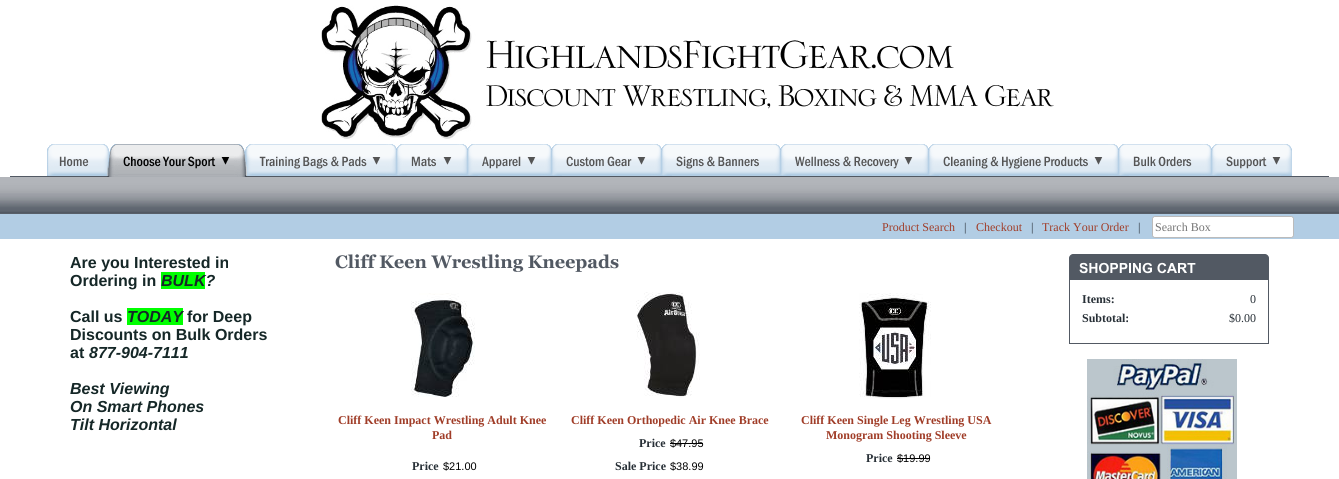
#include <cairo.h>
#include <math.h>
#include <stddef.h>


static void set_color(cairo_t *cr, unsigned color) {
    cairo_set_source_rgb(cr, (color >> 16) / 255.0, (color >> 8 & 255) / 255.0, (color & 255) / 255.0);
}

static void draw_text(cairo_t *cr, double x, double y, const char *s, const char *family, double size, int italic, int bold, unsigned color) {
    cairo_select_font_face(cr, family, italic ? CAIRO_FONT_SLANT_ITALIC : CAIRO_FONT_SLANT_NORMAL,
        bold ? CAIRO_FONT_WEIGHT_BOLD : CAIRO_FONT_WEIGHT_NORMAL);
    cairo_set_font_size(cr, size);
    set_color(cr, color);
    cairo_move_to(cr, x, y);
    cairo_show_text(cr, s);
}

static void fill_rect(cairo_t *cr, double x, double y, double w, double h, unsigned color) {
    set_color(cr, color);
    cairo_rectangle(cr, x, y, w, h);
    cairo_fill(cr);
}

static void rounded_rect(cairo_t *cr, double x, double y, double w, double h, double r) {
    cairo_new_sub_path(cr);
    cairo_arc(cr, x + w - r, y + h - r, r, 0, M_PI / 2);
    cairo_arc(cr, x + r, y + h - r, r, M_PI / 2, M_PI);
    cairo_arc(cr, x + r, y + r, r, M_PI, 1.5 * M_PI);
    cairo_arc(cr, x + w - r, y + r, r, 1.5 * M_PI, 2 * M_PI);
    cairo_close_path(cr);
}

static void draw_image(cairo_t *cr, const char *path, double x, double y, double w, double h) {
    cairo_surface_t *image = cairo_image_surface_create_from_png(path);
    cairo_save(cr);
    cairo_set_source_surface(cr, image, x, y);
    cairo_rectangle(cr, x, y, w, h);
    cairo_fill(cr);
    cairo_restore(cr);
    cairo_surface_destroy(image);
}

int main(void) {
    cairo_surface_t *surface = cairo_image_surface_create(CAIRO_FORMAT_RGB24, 1339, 479);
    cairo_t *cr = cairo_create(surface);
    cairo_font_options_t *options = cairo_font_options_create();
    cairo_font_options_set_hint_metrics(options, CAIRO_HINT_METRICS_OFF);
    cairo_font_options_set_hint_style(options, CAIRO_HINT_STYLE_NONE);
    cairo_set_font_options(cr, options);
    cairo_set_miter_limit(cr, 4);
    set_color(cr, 0xFFFFFF);
    cairo_paint(cr);
    draw_image(cr, "assets/img1.png", 321, 5, 733, 134);
    fill_rect(cr, 10, 176, 1319, 1, 0x525963);
    draw_image(cr, "assets/img2.png", 47, 144, 61, 33);
    draw_image(cr, "assets/img3.png", 108, 144, 137, 33);
    draw_image(cr, "assets/img4.png", 245, 144, 151, 33);
    draw_image(cr, "assets/img5.png", 396, 144, 71, 32);
    draw_image(cr, "assets/img6.png", 467, 144, 84, 32);
    draw_image(cr, "assets/img7.png", 551, 144, 110, 32);
    draw_image(cr, "assets/img8.png", 661, 144, 119, 32);
    draw_image(cr, "assets/img9.png", 780, 144, 148, 32);
    draw_image(cr, "assets/img10.png", 928, 144, 190, 32);
    draw_image(cr, "assets/img11.png", 1118, 144, 93, 32);
    draw_image(cr, "assets/img12.png", 1211, 144, 81, 32);
    draw_image(cr, "assets/img13.png", 0, 177, 1339, 37);
    fill_rect(cr, 0, 214, 1339, 25, 0xB2CDE4);
    draw_text(cr, 882, 231, "Product Search", "Liberation Serif", 12, 0, 0, 0xA03D28);
    draw_text(cr, 964, 231, "|", "Liberation Serif", 12, 0, 0, 0x283037);
    draw_text(cr, 976, 231, "Checkout", "Liberation Serif", 12, 0, 0, 0xA03D28);
    draw_text(cr, 1031, 231, "|", "Liberation Serif", 12, 0, 0, 0x283037);
    draw_text(cr, 1042, 231, "Track Your Order", "Liberation Serif", 12, 0, 0, 0xA03D28);
    draw_text(cr, 1138, 231, "|", "Liberation Serif", 12, 0, 0, 0x283037);
    set_color(cr, 0xFFFFFF);
    rounded_rect(cr, 1152.5, 216.5, 141, 21, 2.5);
    cairo_fill_preserve(cr);
    set_color(cr, 0xBBBBBB);
    cairo_set_line_width(cr, 1);
    cairo_stroke(cr);
    set_color(cr, 0xFFFFFF);
    rounded_rect(cr, 1153, 217, 140, 20, 3);
    cairo_fill(cr);
    draw_text(cr, 1155, 231, "Search Box", "Liberation Serif", 12, 0, 0, 0x757575);
    draw_text(cr, 70, 268, "Are you Interested in", "Liberation Sans", 16, 0, 1, 0x152727);
    draw_text(cr, 70, 286, "Ordering in", "Liberation Sans", 16, 0, 1, 0x152727);
    fill_rect(cr, 161, 272, 44, 17, 0x00FF00);
    draw_text(cr, 161, 286, "BULK?", "Liberation Sans", 16, 1, 1, 0x152727);
    draw_text(cr, 70, 322, "Call us", "Liberation Sans", 16, 0, 1, 0x152727);
    fill_rect(cr, 127, 308, 56, 17, 0x00FF00);
    draw_text(cr, 127, 322, "TODAY", "Liberation Sans", 16, 1, 1, 0x152727);
    draw_text(cr, 187, 322, "for Deep", "Liberation Sans", 16, 0, 1, 0x152727);
    draw_text(cr, 70, 340, "Discounts on Bulk Orders", "Liberation Sans", 16, 0, 1, 0x152727);
    draw_text(cr, 70, 358, "at", "Liberation Sans", 16, 0, 1, 0x152727);
    draw_text(cr, 89, 358, "877-904-7111", "Liberation Sans", 16, 1, 1, 0x152727);
    draw_text(cr, 70, 394, "Best Viewing", "Liberation Sans", 16, 1, 1, 0x152727);
    draw_text(cr, 70, 412, "On Smart Phones", "Liberation Sans", 16, 1, 1, 0x152727);
    draw_text(cr, 70, 430, "Tilt Horizontal", "Liberation Sans", 16, 1, 1, 0x152727);
    set_color(cr, 0x525963);
    cairo_new_path(cr);
    cairo_move_to(cr, 1073, 254);
    cairo_line_to(cr, 1265, 254);
    cairo_curve_to(cr, 1267, 254, 1269, 256, 1269, 258);
    cairo_line_to(cr, 1269, 279);
    cairo_line_to(cr, 1069, 279);
    cairo_line_to(cr, 1069, 258);
    cairo_curve_to(cr, 1069, 256, 1071, 254, 1073, 254);
    cairo_close_path(cr);
    cairo_fill(cr);
    draw_image(cr, "assets/img14.png", 1079, 262, 117, 12);
    cairo_rectangle(cr, 1069.5, 279.5, 199, 64);
    cairo_stroke(cr);
    draw_text(cr, 1082, 303, "Items:", "Liberation Serif", 12, 0, 1, 0x283037);
    draw_text(cr, 1250, 303, "0", "Liberation Serif", 12, 0, 0, 0x283037);
    draw_text(cr, 1082, 322, "Subtotal:", "Liberation Serif", 12, 0, 1, 0x283037);
    draw_text(cr, 1229, 322, "$0.00", "Liberation Serif", 12, 0, 0, 0x283037);
    draw_image(cr, "assets/img15.png", 1087, 359, 150, 120);
    draw_image(cr, "assets/img16.png", 335, 254, 284, 18);
    draw_image(cr, "assets/img17.png", 411, 293, 64, 104);
    draw_text(cr, 338, 424, "Cliff Keen Impact Wrestling Adult Knee", "Liberation Serif", 12, 0, 1, 0xA03D28);
    draw_text(cr, 432, 439, "Pad", "Liberation Serif", 12, 0, 1, 0xA03D28);
    draw_text(cr, 412, 470, "Price", "Liberation Serif", 12, 0, 1, 0x283037);
    draw_text(cr, 443, 470, "$21.00", "Liberation Sans", 11, 0, 0, 0x000000);
    draw_image(cr, "assets/img18.png", 636, 292, 64, 106);
    draw_text(cr, 571, 424, "Cliff Keen Orthopedic Air Knee Brace", "Liberation Serif", 12, 0, 1, 0xA03D28);
    draw_text(cr, 639, 447, "Price", "Liberation Serif", 12, 0, 1, 0x283037);
    draw_text(cr, 670, 447, "$", "Liberation Sans", 11, 0, 0, 0x000000);
    fill_rect(cr, 670, 443, 6, 1, 0x000000);
    draw_text(cr, 676, 447, "47.95", "Liberation Sans", 11, 0, 0, 0x000000);
    fill_rect(cr, 676, 443, 27, 1, 0x000000);
    draw_text(cr, 615, 470, "Sale Price", "Liberation Serif", 12, 0, 1, 0x283037);
    draw_text(cr, 670, 470, "$38.99", "Liberation Sans", 11, 0, 0, 0x000000);
    draw_image(cr, "assets/img19.png", 859, 293, 72, 106);
    draw_text(cr, 801, 424, "Cliff Keen Single Leg Wrestling USA", "Liberation Serif", 12, 0, 1, 0xA03D28);
    draw_text(cr, 826, 439, "Monogram Shooting Sleeve", "Liberation Serif", 12, 0, 1, 0xA03D28);
    draw_text(cr, 866, 462, "Price", "Liberation Serif", 12, 0, 1, 0x283037);
    draw_text(cr, 897, 462, "$19.99", "Liberation Sans", 11, 0, 0, 0x000000);
    fill_rect(cr, 897, 458, 33, 1, 0x000000);
    cairo_surface_write_to_png(surface, "output.png");
    cairo_font_options_destroy(options);
    cairo_destroy(cr);
    cairo_surface_destroy(surface);
    return 0;
}
